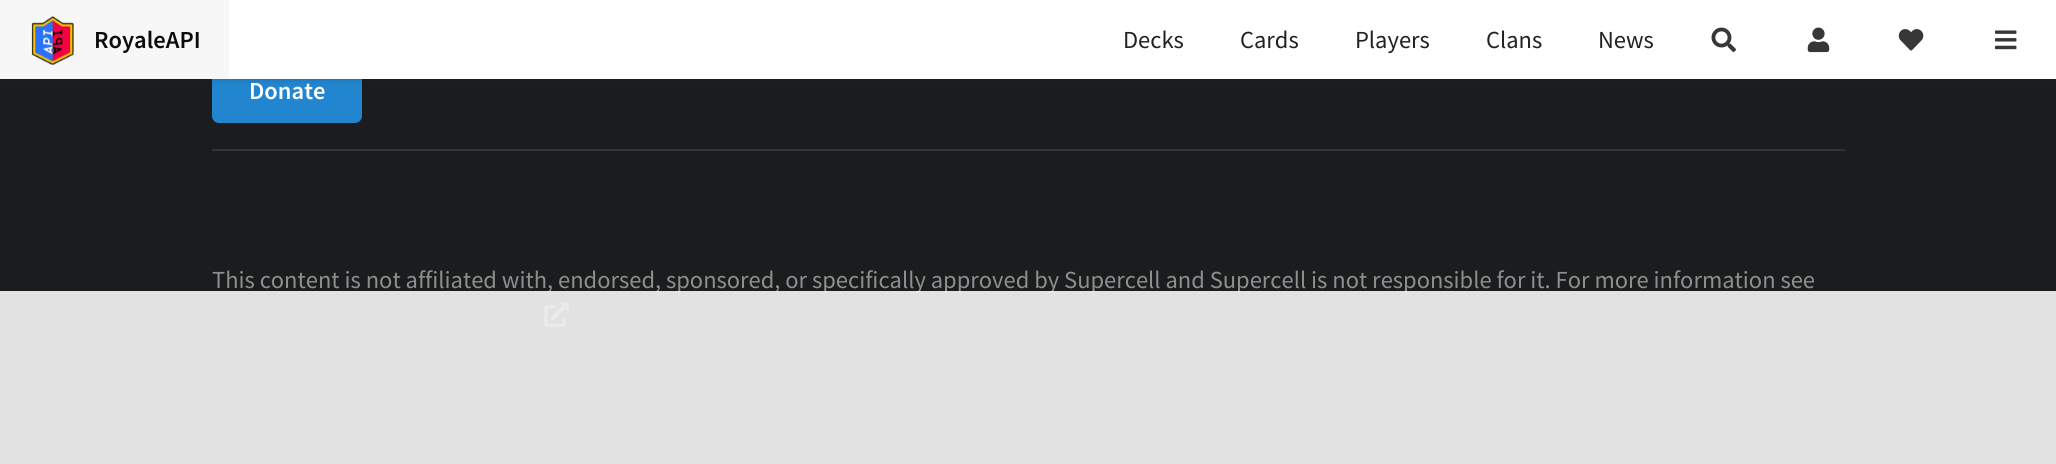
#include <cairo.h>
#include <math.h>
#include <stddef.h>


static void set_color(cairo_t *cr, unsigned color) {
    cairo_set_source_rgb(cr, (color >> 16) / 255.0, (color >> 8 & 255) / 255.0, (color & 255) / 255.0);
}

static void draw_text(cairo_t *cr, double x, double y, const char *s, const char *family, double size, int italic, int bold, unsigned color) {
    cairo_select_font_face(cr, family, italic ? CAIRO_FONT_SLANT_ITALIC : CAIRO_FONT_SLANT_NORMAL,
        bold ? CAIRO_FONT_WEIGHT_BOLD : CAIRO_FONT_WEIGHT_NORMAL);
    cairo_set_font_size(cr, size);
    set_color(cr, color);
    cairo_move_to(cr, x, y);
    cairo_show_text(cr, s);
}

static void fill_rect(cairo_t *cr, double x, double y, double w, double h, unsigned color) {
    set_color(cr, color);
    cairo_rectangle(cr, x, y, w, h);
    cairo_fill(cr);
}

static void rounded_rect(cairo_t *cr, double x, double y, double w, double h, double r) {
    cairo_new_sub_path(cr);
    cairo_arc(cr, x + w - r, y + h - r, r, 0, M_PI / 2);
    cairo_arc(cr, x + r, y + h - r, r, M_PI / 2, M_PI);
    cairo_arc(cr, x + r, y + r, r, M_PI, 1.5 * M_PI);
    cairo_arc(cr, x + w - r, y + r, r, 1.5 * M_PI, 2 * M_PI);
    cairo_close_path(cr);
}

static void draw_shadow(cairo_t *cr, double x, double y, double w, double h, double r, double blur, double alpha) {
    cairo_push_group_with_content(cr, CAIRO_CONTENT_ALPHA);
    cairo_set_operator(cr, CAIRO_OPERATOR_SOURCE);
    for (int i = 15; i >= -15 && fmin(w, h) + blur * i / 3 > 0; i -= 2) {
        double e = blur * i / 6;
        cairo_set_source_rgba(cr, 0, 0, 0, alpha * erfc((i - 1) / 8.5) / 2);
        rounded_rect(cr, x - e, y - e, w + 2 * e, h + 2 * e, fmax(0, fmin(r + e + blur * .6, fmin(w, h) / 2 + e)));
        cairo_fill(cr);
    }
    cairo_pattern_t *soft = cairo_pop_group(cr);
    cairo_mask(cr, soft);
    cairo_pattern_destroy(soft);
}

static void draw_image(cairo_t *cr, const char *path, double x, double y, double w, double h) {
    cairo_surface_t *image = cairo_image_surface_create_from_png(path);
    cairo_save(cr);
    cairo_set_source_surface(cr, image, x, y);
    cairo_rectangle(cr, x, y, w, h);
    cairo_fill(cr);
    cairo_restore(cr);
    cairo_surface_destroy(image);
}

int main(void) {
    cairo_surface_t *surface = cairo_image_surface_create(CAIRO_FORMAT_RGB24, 2056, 464);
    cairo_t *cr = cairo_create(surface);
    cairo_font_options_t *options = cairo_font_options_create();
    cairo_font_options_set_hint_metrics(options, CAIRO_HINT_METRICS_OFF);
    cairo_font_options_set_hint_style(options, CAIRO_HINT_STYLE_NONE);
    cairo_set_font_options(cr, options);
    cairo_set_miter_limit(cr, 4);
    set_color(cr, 0x1B1C1D);
    cairo_paint(cr);
    set_color(cr, 0x2185D0);
    rounded_rect(cr, 212, 60, 150, 63, 7);
    cairo_fill(cr);
    set_color(cr, 0x222426);
    draw_shadow(cr, 0, 2, 2056, 79, 0, 2, 0.15);
    fill_rect(cr, 229, 0, 1827, 79, 0xFFFFFF);
    fill_rect(cr, 0, 0, 229, 79, 0xF7F7F7);
    draw_image(cr, "assets/img1.png", 31, 16, 43, 49);
    draw_text(cr, 94, 48, "RoyaleAPI", "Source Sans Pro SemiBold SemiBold", 24.5, 0, 0, 0x0C0C0C);
    draw_text(cr, 1123, 48, "Decks", "Source Sans Pro", 24.5, 0, 0, 0x212121);
    draw_text(cr, 1240, 48, "Cards", "Source Sans Pro", 24.5, 0, 0, 0x212121);
    draw_text(cr, 1355, 48, "Players", "Source Sans Pro", 24.5, 0, 0, 0x212121);
    draw_text(cr, 1486, 48, "Clans", "Source Sans Pro", 24.5, 0, 0, 0x212121);
    draw_text(cr, 1598, 48, "News", "Source Sans Pro", 24.5, 0, 0, 0x212121);
    draw_image(cr, "assets/img2.png", 1711, 27, 25, 25);
    draw_image(cr, "assets/img3.png", 1807, 27, 23, 26);
    draw_image(cr, "assets/img4.png", 1898, 29, 26, 22);
    draw_image(cr, "assets/img5.png", 1995, 30, 22, 20);
    draw_text(cr, 249, 99, "Donate", "Source Sans Pro SemiBold SemiBold", 24.5, 0, 0, 0xFFFFFF);
    fill_rect(cr, 212, 149, 1633, 2, 0x323334);
    draw_text(cr, 212, 288, "This content is not affiliated with, endorsed, sponsored, or specifically approved by Supercell and Supercell is not responsible for it. For more information see", "Source Sans Pro", 24.5, 0, 0, 0x8D8E8E);
    draw_image(cr, "assets/img6.png", 544, 302, 25, 25);
    cairo_set_source_rgba(cr, 0.969, 0.969, 0.969, 0.9);
    cairo_rectangle(cr, 0, 291, 2056, 173);
    cairo_fill(cr);
    cairo_surface_write_to_png(surface, "output.png");
    cairo_font_options_destroy(options);
    cairo_destroy(cr);
    cairo_surface_destroy(surface);
    return 0;
}
